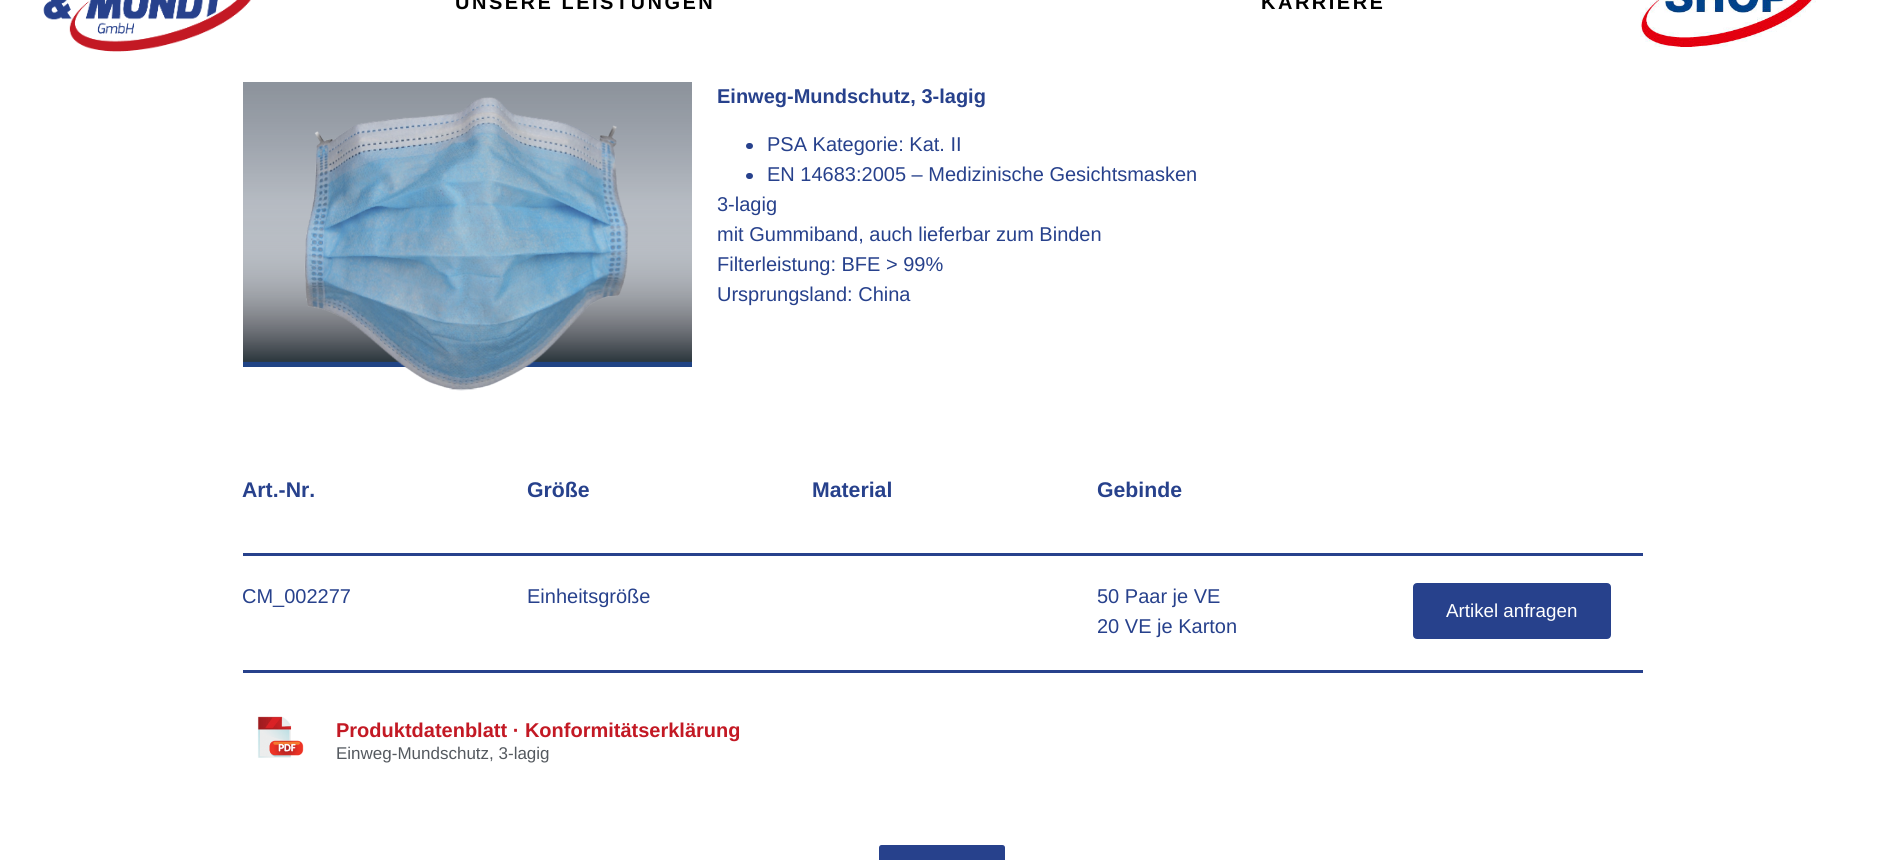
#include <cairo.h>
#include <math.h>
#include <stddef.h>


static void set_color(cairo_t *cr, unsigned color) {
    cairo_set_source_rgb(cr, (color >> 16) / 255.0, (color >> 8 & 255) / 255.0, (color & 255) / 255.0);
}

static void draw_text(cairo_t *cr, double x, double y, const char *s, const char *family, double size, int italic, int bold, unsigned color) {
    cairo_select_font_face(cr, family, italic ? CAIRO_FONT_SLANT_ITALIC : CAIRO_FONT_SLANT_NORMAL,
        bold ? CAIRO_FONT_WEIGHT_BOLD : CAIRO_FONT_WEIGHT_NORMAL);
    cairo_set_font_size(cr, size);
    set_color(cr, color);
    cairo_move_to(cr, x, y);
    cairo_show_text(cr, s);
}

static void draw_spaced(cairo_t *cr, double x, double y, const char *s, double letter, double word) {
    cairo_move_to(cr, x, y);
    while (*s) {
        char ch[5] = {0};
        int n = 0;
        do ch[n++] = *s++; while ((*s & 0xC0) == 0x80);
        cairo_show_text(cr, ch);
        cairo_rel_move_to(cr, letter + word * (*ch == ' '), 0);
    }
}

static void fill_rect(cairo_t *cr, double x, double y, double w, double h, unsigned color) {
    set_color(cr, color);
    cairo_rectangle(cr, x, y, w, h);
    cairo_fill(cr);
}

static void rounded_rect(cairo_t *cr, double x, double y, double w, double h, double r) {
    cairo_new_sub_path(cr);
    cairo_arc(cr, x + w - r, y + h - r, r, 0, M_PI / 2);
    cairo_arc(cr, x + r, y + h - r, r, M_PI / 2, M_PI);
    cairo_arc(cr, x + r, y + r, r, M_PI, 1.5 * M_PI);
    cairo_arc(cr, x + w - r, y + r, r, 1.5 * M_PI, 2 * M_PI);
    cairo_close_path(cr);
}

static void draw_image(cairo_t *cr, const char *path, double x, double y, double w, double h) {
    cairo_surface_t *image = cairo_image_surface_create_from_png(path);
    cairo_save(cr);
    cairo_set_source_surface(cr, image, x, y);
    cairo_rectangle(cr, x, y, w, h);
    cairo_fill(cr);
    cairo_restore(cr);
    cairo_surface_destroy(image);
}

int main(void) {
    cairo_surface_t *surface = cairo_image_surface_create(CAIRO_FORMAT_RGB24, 1883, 860);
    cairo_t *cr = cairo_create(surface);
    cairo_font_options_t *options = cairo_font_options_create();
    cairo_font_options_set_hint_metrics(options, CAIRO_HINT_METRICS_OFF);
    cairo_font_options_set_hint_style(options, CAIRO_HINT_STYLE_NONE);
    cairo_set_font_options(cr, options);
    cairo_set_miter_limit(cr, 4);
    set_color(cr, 0xFFFFFF);
    cairo_paint(cr);
    draw_image(cr, "assets/img1.png", 43, 0, 208, 52);
    cairo_select_font_face(cr, "Liberation Sans", CAIRO_FONT_SLANT_NORMAL, CAIRO_FONT_WEIGHT_BOLD);
    cairo_set_font_size(cr, 20);
    set_color(cr, 0x000000);
    draw_spaced(cr, 455, 9, "UNSERE LEISTUNGEN", 2.5, 0);
    draw_spaced(cr, 1261, 9, "KARRIERE", 2.5, 0);
    draw_image(cr, "assets/img2.png", 1640, 0, 176, 47);
    draw_image(cr, "assets/img3.png", 243, 82, 449, 309);
    draw_text(cr, 717, 103, "Einweg-Mundschutz, 3-lagig", "Liberation Sans", 20, 0, 1, 0x27418C);
    rounded_rect(cr, 746, 143, 7, 6, 3);
    cairo_fill(cr);
    draw_text(cr, 767, 151, "PSA Kategorie: Kat. II", "Liberation Sans", 20, 0, 0, 0x27418C);
    rounded_rect(cr, 746, 173, 7, 6, 3);
    cairo_fill(cr);
    draw_text(cr, 767, 181, "EN 14683:2005 – Medizinische Gesichtsmasken", "Liberation Sans", 20, 0, 0, 0x27418C);
    draw_text(cr, 717, 211, "3-lagig", "Liberation Sans", 20, 0, 0, 0x27418C);
    draw_text(cr, 717, 241, "mit Gummiband, auch lieferbar zum Binden", "Liberation Sans", 20, 0, 0, 0x27418C);
    draw_text(cr, 717, 271, "Filterleistung: BFE > 99%", "Liberation Sans", 20, 0, 0, 0x27418C);
    draw_text(cr, 717, 301, "Ursprungsland: China", "Liberation Sans", 20, 0, 0, 0x27418C);
    draw_text(cr, 242, 497, "Art.-Nr.", "Liberation Sans", 21.25, 0, 1, 0x27418C);
    draw_text(cr, 527, 497, "Größe", "Liberation Sans", 21.25, 0, 1, 0x27418C);
    draw_text(cr, 812, 497, "Material", "Liberation Sans", 21.25, 0, 1, 0x27418C);
    draw_text(cr, 1097, 497, "Gebinde", "Liberation Sans", 21.25, 0, 1, 0x27418C);
    fill_rect(cr, 243, 553, 1400, 3, 0x27418C);
    draw_text(cr, 242, 603, "CM_002277", "Liberation Sans", 20, 0, 0, 0x27418C);
    draw_text(cr, 527, 603, "Einheitsgröße", "Liberation Sans", 20, 0, 0, 0x27418C);
    draw_text(cr, 1097, 603, "50 Paar je VE", "Liberation Sans", 20, 0, 0, 0x27418C);
    draw_text(cr, 1097, 633, "20 VE je Karton", "Liberation Sans", 20, 0, 0, 0x27418C);
    rounded_rect(cr, 1415, 585, 194, 52, 2);
    cairo_fill_preserve(cr);
    cairo_set_line_width(cr, 4);
    cairo_stroke(cr);
    draw_text(cr, 1446, 617, "Artikel anfragen", "Liberation Sans", 18.75, 0, 0, 0xFFFFFF);
    fill_rect(cr, 243, 670, 1400, 3, 0x27418C);
    draw_image(cr, "assets/img4.png", 257, 716, 47, 42);
    draw_text(cr, 336, 737, "Produktdatenblatt · Konformitätserklärung", "Liberation Sans", 20, 0, 1, 0xC31924);
    draw_text(cr, 336, 759, "Einweg-Mundschutz, 3-lagig", "Liberation Sans", 17, 0, 0, 0x54595F);
    set_color(cr, 0x27418C);
    rounded_rect(cr, 881, 847, 122, 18, 0.5);
    cairo_fill_preserve(cr);
    cairo_stroke(cr);
    cairo_surface_write_to_png(surface, "output.png");
    cairo_font_options_destroy(options);
    cairo_destroy(cr);
    cairo_surface_destroy(surface);
    return 0;
}
